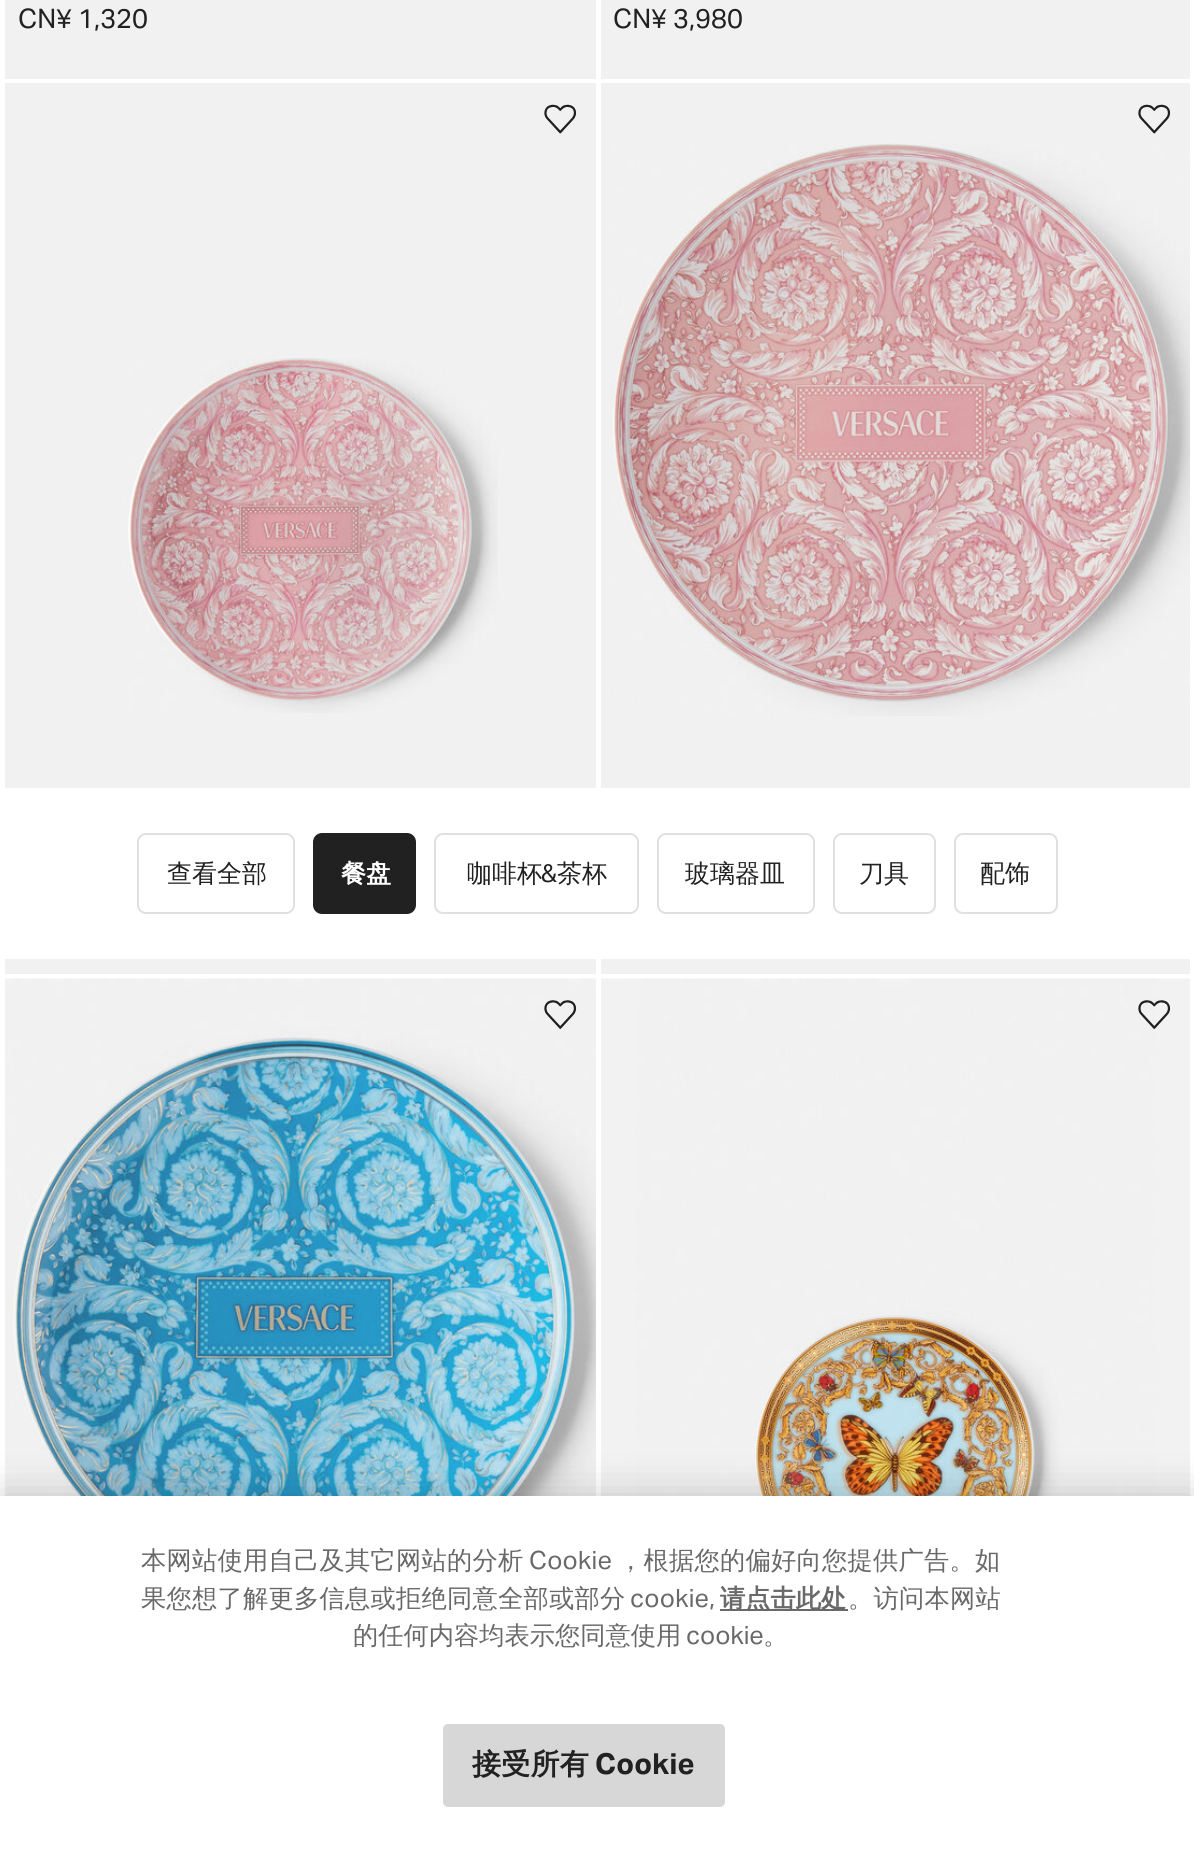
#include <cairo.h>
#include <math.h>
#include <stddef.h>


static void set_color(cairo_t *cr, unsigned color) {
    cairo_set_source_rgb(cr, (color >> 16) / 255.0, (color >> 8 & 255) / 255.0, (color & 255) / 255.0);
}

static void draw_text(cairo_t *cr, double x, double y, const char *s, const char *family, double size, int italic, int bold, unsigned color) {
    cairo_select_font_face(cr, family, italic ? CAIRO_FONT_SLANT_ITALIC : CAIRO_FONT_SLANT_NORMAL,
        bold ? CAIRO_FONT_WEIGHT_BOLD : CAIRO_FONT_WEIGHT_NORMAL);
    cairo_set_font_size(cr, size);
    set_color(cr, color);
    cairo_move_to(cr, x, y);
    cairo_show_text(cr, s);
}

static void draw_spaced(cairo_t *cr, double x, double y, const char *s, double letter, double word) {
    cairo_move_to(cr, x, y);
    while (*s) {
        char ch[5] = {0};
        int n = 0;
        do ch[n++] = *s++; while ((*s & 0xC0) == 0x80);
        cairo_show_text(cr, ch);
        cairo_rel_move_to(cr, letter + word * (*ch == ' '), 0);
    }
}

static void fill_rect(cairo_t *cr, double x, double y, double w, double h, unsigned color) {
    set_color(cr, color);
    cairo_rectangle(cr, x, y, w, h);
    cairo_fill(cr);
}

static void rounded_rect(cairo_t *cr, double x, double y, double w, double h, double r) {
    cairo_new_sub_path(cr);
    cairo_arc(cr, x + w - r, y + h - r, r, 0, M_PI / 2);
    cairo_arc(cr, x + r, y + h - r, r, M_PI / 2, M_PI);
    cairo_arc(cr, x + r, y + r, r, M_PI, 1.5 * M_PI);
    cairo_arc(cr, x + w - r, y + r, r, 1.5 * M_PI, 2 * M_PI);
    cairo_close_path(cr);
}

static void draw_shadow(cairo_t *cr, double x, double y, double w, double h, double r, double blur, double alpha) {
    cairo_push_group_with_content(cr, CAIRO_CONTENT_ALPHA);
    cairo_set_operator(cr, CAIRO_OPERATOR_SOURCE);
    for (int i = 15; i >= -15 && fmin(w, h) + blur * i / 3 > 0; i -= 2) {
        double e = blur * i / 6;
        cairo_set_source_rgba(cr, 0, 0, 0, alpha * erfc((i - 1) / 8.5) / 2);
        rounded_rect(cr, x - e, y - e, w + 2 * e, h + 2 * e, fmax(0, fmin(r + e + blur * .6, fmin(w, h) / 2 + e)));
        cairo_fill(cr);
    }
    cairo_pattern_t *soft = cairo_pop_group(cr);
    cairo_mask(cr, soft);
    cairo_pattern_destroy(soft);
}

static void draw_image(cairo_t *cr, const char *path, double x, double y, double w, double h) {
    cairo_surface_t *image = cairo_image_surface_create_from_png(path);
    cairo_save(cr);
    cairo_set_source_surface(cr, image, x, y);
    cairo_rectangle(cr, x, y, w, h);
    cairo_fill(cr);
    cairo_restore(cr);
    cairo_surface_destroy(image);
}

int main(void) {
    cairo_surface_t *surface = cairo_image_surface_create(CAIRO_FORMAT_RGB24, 1194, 1863);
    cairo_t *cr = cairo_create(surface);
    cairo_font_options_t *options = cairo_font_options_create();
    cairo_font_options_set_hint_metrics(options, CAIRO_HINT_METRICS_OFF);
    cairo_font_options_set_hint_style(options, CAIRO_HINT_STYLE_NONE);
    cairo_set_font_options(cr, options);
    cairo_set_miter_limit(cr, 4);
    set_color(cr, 0xFFFFFF);
    cairo_paint(cr);
    fill_rect(cr, 5, 0, 591, 79, 0xF1F1F1);
    draw_text(cr, 18, 28, "CN¥ 1,320", "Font", 27, 0, 0, 0x212121);
    fill_rect(cr, 601, 0, 589, 79, 0xF1F1F1);
    draw_text(cr, 613, 28, "CN¥ 3,980", "Font", 27, 0, 0, 0x212121);
    fill_rect(cr, 5, 83, 591, 891, 0xF1F1F1);
    draw_image(cr, "assets/img1.png", 544, 104, 33, 30);
    draw_image(cr, "assets/img2.png", 125, 358, 373, 355);
    fill_rect(cr, 601, 83, 589, 891, 0xF1F1F1);
    draw_image(cr, "assets/img1.png", 1138, 104, 33, 30);
    draw_image(cr, "assets/img3.png", 611, 143, 579, 573);
    draw_image(cr, "assets/img4.png", 5, 978, 591, 518);
    draw_image(cr, "assets/img5.png", 544, 1000, 33, 29);
    draw_image(cr, "assets/img6.png", 601, 978, 589, 518);
    draw_image(cr, "assets/img7.png", 1138, 1000, 33, 29);
    fill_rect(cr, 5, 788, 1185, 171, 0xFFFFFF);
    rounded_rect(cr, 138, 834, 156, 79, 8);
    set_color(cr, 0xE0E0E0);
    cairo_stroke(cr);
    draw_text(cr, 167, 882, "查看全部", "WenQuanYi Zen Hei Medium", 25, 0, 0, 0x212121);
    rounded_rect(cr, 314, 834, 101, 79, 8);
    cairo_fill_preserve(cr);
    cairo_stroke(cr);
    draw_text(cr, 341, 882, "餐盘", "WenQuanYi Zen Hei", 25, 0, 1, 0xFFFFFF);
    rounded_rect(cr, 435, 834, 203, 79, 8);
    set_color(cr, 0xE0E0E0);
    cairo_stroke(cr);
    draw_text(cr, 467, 882, "咖啡杯", "WenQuanYi Zen Hei Medium", 25, 0, 0, 0x212121);
    draw_text(cr, 541, 882, "&", "Font", 25, 0, 0, 0x212121);
    draw_text(cr, 557, 882, "茶杯", "WenQuanYi Zen Hei Medium", 25, 0, 0, 0x212121);
    rounded_rect(cr, 658, 834, 156, 79, 8);
    set_color(cr, 0xE0E0E0);
    cairo_stroke(cr);
    draw_text(cr, 685, 882, "玻璃器皿", "WenQuanYi Zen Hei Medium", 25, 0, 0, 0x212121);
    rounded_rect(cr, 834, 834, 101, 79, 8);
    set_color(cr, 0xE0E0E0);
    cairo_stroke(cr);
    draw_text(cr, 859, 882, "刀具", "WenQuanYi Zen Hei Medium", 25, 0, 0, 0x212121);
    rounded_rect(cr, 955, 834, 102, 79, 8);
    set_color(cr, 0xE0E0E0);
    cairo_stroke(cr);
    draw_text(cr, 980, 882, "配饰", "WenQuanYi Zen Hei Medium", 25, 0, 0, 0x212121);
    set_color(cr, 0x000000);
    draw_shadow(cr, 0, 1496, 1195, 367, 0, 20, 0.2);
    fill_rect(cr, 0, 1496, 1194, 367, 0xFFFFFF);
    cairo_set_font_size(cr, 25.25);
    set_color(cr, 0x696969);
    draw_spaced(cr, 141, 1569, "本网站使用自己及其它网站的分析", 0.25, 0);
    cairo_select_font_face(cr, "Font", CAIRO_FONT_SLANT_NORMAL, CAIRO_FONT_WEIGHT_NORMAL);
    draw_spaced(cr, 529, 1569, "Cookie", 0.25, 0);
    cairo_select_font_face(cr, "WenQuanYi Zen Hei Medium", CAIRO_FONT_SLANT_NORMAL, CAIRO_FONT_WEIGHT_NORMAL);
    draw_spaced(cr, 618, 1569, "，根据您的偏好向您提供广告。如", 0.25, 0);
    draw_spaced(cr, 141, 1607, "果您想了解更多信息或拒绝同意全部或部分", 0.25, 0);
    cairo_select_font_face(cr, "Font", CAIRO_FONT_SLANT_NORMAL, CAIRO_FONT_WEIGHT_NORMAL);
    draw_spaced(cr, 630, 1607, "cookie,", 0.25, 0);
    fill_rect(cr, 720, 1609, 128, 2, 0x696969);
    draw_text(cr, 720, 1607, "请点击此处", "WenQuanYi Zen Hei", 25.25, 0, 1, 0x696969);
    cairo_select_font_face(cr, "WenQuanYi Zen Hei Medium", CAIRO_FONT_SLANT_NORMAL, CAIRO_FONT_WEIGHT_NORMAL);
    draw_spaced(cr, 848, 1607, "。访问本网站", 0.25, 0);
    draw_text(cr, 353, 1644, "的任何内容均表示您同意使用", "WenQuanYi Zen Hei Medium", 25.25, 0, 0, 0x696969);
    draw_text(cr, 686, 1644, "cookie", "Font", 25.25, 0, 0, 0x696969);
    draw_text(cr, 763, 1644, "。", "WenQuanYi Zen Hei Medium", 25.25, 0, 0, 0x696969);
    set_color(cr, 0xD7D7D7);
    rounded_rect(cr, 444, 1725, 280, 81, 4);
    cairo_fill_preserve(cr);
    cairo_stroke(cr);
    cairo_select_font_face(cr, "WenQuanYi Zen Hei", CAIRO_FONT_SLANT_NORMAL, CAIRO_FONT_WEIGHT_BOLD);
    cairo_set_font_size(cr, 29);
    set_color(cr, 0x212121);
    draw_spaced(cr, 472, 1774, "接受所有", 0.25, 0);
    cairo_select_font_face(cr, "Font", CAIRO_FONT_SLANT_NORMAL, CAIRO_FONT_WEIGHT_BOLD);
    draw_spaced(cr, 595, 1774, "Cookie", 0.25, 0);
    cairo_surface_write_to_png(surface, "output.png");
    cairo_font_options_destroy(options);
    cairo_destroy(cr);
    cairo_surface_destroy(surface);
    return 0;
}
